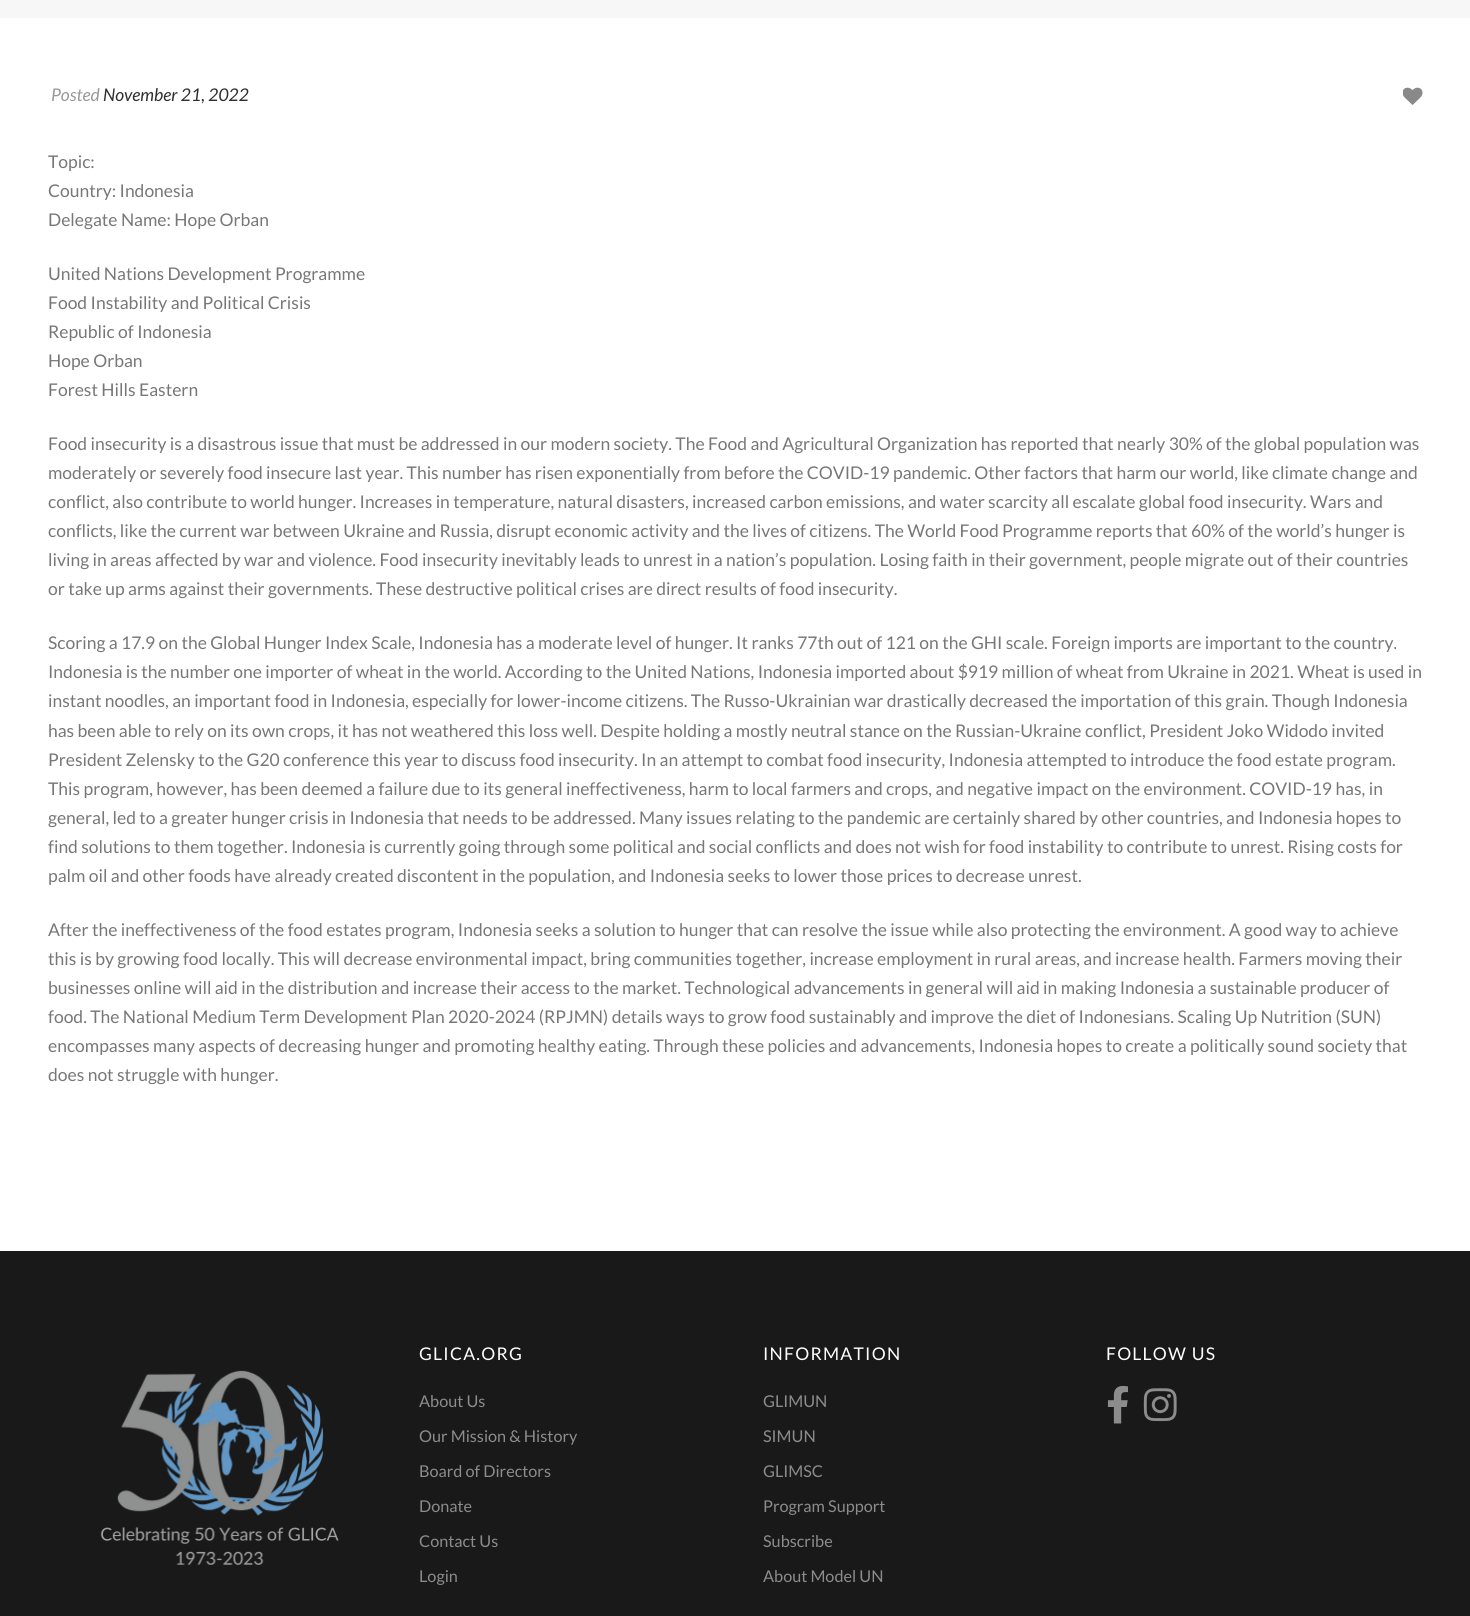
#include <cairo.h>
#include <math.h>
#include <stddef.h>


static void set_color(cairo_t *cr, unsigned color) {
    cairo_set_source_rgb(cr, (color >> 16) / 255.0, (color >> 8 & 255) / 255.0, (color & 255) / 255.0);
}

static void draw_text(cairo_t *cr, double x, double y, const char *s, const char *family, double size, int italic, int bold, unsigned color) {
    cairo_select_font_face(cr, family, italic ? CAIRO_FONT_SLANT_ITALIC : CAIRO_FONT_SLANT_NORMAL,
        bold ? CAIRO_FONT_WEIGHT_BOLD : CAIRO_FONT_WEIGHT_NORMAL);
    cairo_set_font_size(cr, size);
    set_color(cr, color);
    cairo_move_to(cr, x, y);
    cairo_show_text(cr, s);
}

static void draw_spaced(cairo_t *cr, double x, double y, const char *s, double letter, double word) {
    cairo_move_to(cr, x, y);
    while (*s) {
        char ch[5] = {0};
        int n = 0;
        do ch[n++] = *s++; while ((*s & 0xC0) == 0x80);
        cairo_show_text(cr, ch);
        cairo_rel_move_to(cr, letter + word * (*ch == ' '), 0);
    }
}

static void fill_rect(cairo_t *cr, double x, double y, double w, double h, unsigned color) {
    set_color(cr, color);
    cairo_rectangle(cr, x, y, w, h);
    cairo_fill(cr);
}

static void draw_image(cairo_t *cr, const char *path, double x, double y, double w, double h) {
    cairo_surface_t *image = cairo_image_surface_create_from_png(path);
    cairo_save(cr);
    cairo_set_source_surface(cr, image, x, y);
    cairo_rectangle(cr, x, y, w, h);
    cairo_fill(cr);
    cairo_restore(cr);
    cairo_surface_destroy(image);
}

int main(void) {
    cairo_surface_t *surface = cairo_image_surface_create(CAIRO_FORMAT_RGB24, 1470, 1616);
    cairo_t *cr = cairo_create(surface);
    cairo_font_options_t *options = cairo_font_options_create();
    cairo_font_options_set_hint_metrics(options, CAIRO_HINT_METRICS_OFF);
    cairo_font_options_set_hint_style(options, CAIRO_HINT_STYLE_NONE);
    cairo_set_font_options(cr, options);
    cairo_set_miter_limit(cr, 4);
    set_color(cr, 0xFFFFFF);
    cairo_paint(cr);
    fill_rect(cr, 0, 0, 1470, 18, 0xF7F7F7);
    draw_text(cr, 51, 101, "Posted", "Lato", 17.5, 1, 0, 0x999999);
    draw_text(cr, 103, 101, "November 21, 2022", "Lato", 17.5, 1, 0, 0x2E2E2E);
    draw_image(cr, "assets/img1.png", 1403, 87, 20, 18);
    draw_text(cr, 48, 168, "Topic:", "Lato", 17.5, 0, 0, 0x777777);
    draw_text(cr, 48, 197, "Country: Indonesia", "Lato", 17.5, 0, 0, 0x777777);
    draw_text(cr, 48, 226, "Delegate Name: Hope Orban", "Lato", 17.5, 0, 0, 0x777777);
    draw_text(cr, 48, 280, "United Nations Development Programme", "Lato", 17.5, 0, 0, 0x777777);
    draw_text(cr, 48, 309, "Food Instability and Political Crisis", "Lato", 17.5, 0, 0, 0x777777);
    draw_text(cr, 48, 338, "Republic of Indonesia", "Lato", 17.5, 0, 0, 0x777777);
    draw_text(cr, 48, 367, "Hope Orban", "Lato", 17.5, 0, 0, 0x777777);
    draw_text(cr, 48, 396, "Forest Hills Eastern", "Lato", 17.5, 0, 0, 0x777777);
    draw_text(cr, 48, 450, "Food insecurity is a disastrous issue that must be addressed in our modern society. The Food and Agricultural Organization has reported that nearly 30% of the global population was", "Lato", 17.5, 0, 0, 0x777777);
    draw_text(cr, 48, 479, "moderately or severely food insecure last year. This number has risen exponentially from before the COVID-19 pandemic. Other factors that harm our world, like climate change and", "Lato", 17.5, 0, 0, 0x777777);
    draw_text(cr, 48, 508, "conflict, also contribute to world hunger. Increases in temperature, natural disasters, increased carbon emissions, and water scarcity all escalate global food insecurity. Wars and", "Lato", 17.5, 0, 0, 0x777777);
    draw_text(cr, 48, 537, "conflicts, like the current war between Ukraine and Russia, disrupt economic activity and the lives of citizens. The World Food Programme reports that 60% of the world’s hunger is", "Lato", 17.5, 0, 0, 0x777777);
    draw_text(cr, 48, 566, "living in areas affected by war and violence. Food insecurity inevitably leads to unrest in a nation’s population. Losing faith in their government, people migrate out of their countries", "Lato", 17.5, 0, 0, 0x777777);
    draw_text(cr, 48, 595, "or take up arms against their governments. These destructive political crises are direct results of food insecurity.", "Lato", 17.5, 0, 0, 0x777777);
    draw_text(cr, 48, 649, "Scoring a 17.9 on the Global Hunger Index Scale, Indonesia has a moderate level of hunger. It ranks 77th out of 121 on the GHI scale. Foreign imports are important to the country.", "Lato", 17.5, 0, 0, 0x777777);
    draw_text(cr, 48, 678, "Indonesia is the number one importer of wheat in the world. According to the United Nations, Indonesia imported about $919 million of wheat from Ukraine in 2021. Wheat is used in", "Lato", 17.5, 0, 0, 0x777777);
    draw_text(cr, 48, 707, "instant noodles, an important food in Indonesia, especially for lower-income citizens. The Russo-Ukrainian war drastically decreased the importation of this grain. Though Indonesia", "Lato", 17.5, 0, 0, 0x777777);
    draw_text(cr, 48, 737, "has been able to rely on its own crops, it has not weathered this loss well. Despite holding a mostly neutral stance on the Russian-Ukraine conflict, President Joko Widodo invited", "Lato", 17.5, 0, 0, 0x777777);
    draw_text(cr, 48, 766, "President Zelensky to the G20 conference this year to discuss food insecurity. In an attempt to combat food insecurity, Indonesia attempted to introduce the food estate program.", "Lato", 17.5, 0, 0, 0x777777);
    draw_text(cr, 48, 795, "This program, however, has been deemed a failure due to its general ineffectiveness, harm to local farmers and crops, and negative impact on the environment. COVID-19 has, in", "Lato", 17.5, 0, 0, 0x777777);
    draw_text(cr, 48, 824, "general, led to a greater hunger crisis in Indonesia that needs to be addressed. Many issues relating to the pandemic are certainly shared by other countries, and Indonesia hopes to", "Lato", 17.5, 0, 0, 0x777777);
    draw_text(cr, 48, 853, "find solutions to them together. Indonesia is currently going through some political and social conflicts and does not wish for food instability to contribute to unrest. Rising costs for", "Lato", 17.5, 0, 0, 0x777777);
    draw_text(cr, 48, 882, "palm oil and other foods have already created discontent in the population, and Indonesia seeks to lower those prices to decrease unrest.", "Lato", 17.5, 0, 0, 0x777777);
    draw_text(cr, 48, 936, "After the ineffectiveness of the food estates program, Indonesia seeks a solution to hunger that can resolve the issue while also protecting the environment. A good way to achieve", "Lato", 17.5, 0, 0, 0x777777);
    draw_text(cr, 48, 965, "this is by growing food locally. This will decrease environmental impact, bring communities together, increase employment in rural areas, and increase health. Farmers moving their", "Lato", 17.5, 0, 0, 0x777777);
    draw_text(cr, 48, 994, "businesses online will aid in the distribution and increase their access to the market. Technological advancements in general will aid in making Indonesia a sustainable producer of", "Lato", 17.5, 0, 0, 0x777777);
    draw_text(cr, 48, 1023, "food. The National Medium Term Development Plan 2020-2024 (RPJMN) details ways to grow food sustainably and improve the diet of Indonesians. Scaling Up Nutrition (SUN)", "Lato", 17.5, 0, 0, 0x777777);
    draw_text(cr, 48, 1052, "encompasses many aspects of decreasing hunger and promoting healthy eating. Through these policies and advancements, Indonesia hopes to create a politically sound society that", "Lato", 17.5, 0, 0, 0x777777);
    draw_text(cr, 48, 1081, "does not struggle with hunger.", "Lato", 17.5, 0, 0, 0x777777);
    fill_rect(cr, 0, 1251, 1470, 365, 0x191919);
    set_color(cr, 0xFFFFFF);
    draw_spaced(cr, 419, 1360, "GLICA.ORG", 1.25, 0);
    draw_text(cr, 419, 1407, "About Us", "Lato", 16.25, 0, 0, 0x8C8C8C);
    draw_text(cr, 419, 1442, "Our Mission & History", "Lato", 16.25, 0, 0, 0x8C8C8C);
    draw_text(cr, 419, 1477, "Board of Directors", "Lato", 16.25, 0, 0, 0x8C8C8C);
    draw_text(cr, 419, 1512, "Donate", "Lato", 16.25, 0, 0, 0x8C8C8C);
    draw_text(cr, 419, 1547, "Contact Us", "Lato", 16.25, 0, 0, 0x8C8C8C);
    draw_text(cr, 419, 1582, "Login", "Lato", 16.25, 0, 0, 0x8C8C8C);
    cairo_set_font_size(cr, 17.5);
    set_color(cr, 0xFFFFFF);
    draw_spaced(cr, 763, 1360, "INFORMATION", 1.25, 0);
    draw_text(cr, 763, 1407, "GLIMUN", "Lato", 16.25, 0, 0, 0x8C8C8C);
    draw_text(cr, 763, 1442, "SIMUN", "Lato", 16.25, 0, 0, 0x8C8C8C);
    draw_text(cr, 763, 1477, "GLIMSC", "Lato", 16.25, 0, 0, 0x8C8C8C);
    draw_text(cr, 763, 1512, "Program Support", "Lato", 16.25, 0, 0, 0x8C8C8C);
    draw_text(cr, 763, 1547, "Subscribe", "Lato", 16.25, 0, 0, 0x8C8C8C);
    draw_text(cr, 763, 1582, "About Model UN", "Lato", 16.25, 0, 0, 0x8C8C8C);
    cairo_set_font_size(cr, 17.5);
    set_color(cr, 0xFFFFFF);
    draw_spaced(cr, 1106, 1360, "FOLLOW US", 1.25, 0);
    draw_image(cr, "assets/img2.png", 1107, 1385, 21, 39);
    draw_image(cr, "assets/img3.png", 1143, 1388, 34, 34);
    draw_image(cr, "assets/img4.png", 100, 1370, 239, 195);
    cairo_surface_write_to_png(surface, "output.png");
    cairo_font_options_destroy(options);
    cairo_destroy(cr);
    cairo_surface_destroy(surface);
    return 0;
}
